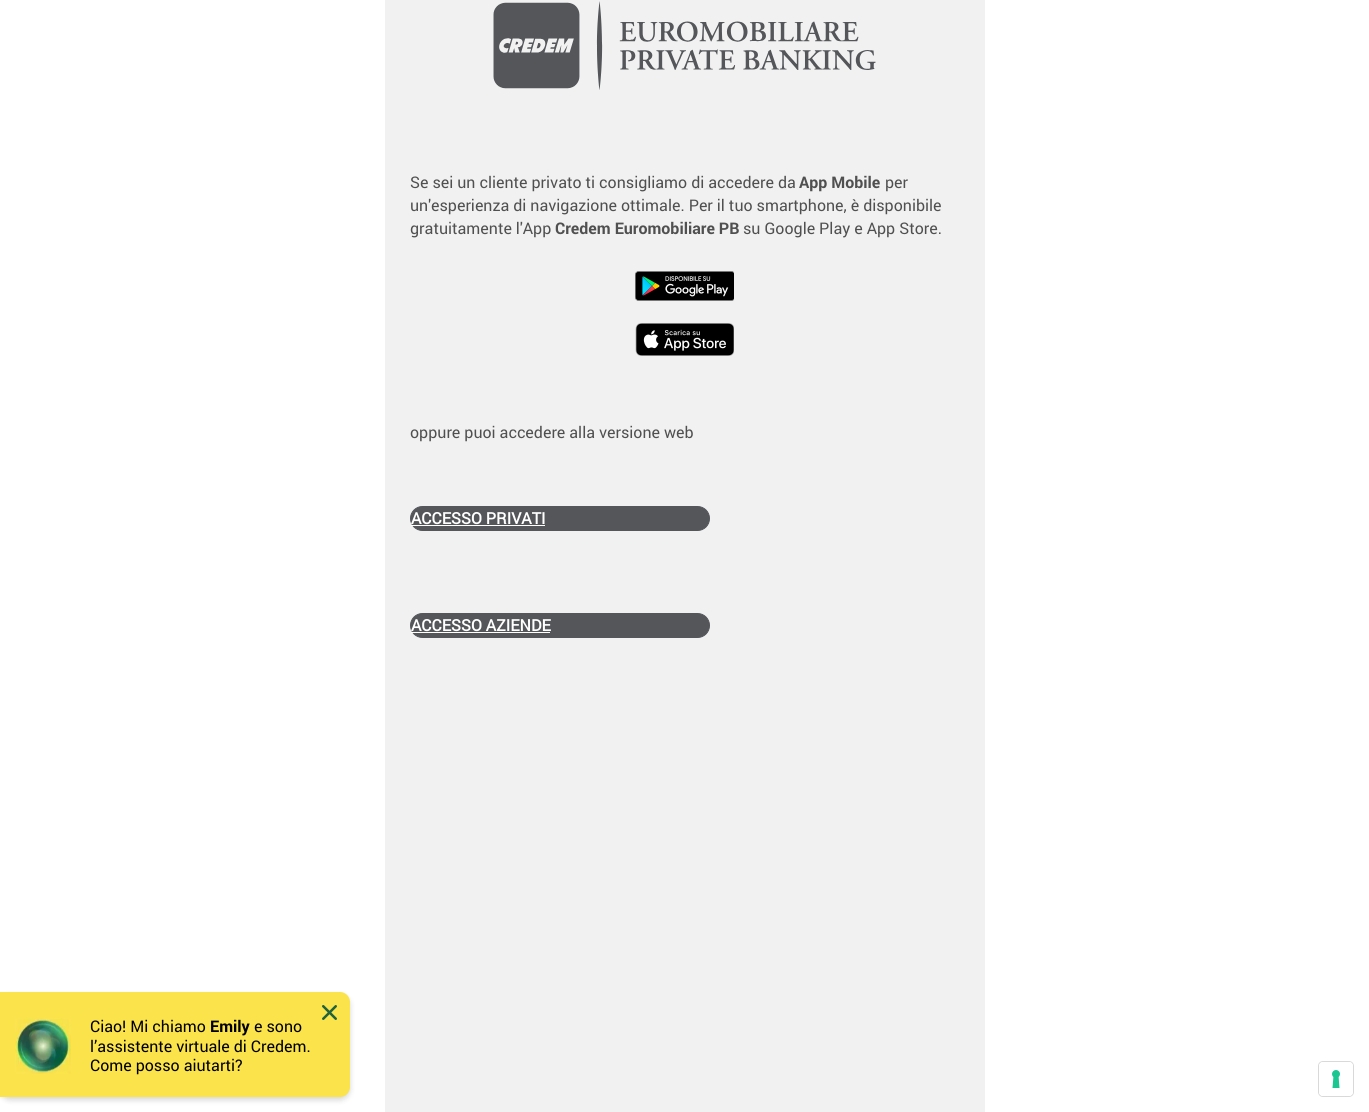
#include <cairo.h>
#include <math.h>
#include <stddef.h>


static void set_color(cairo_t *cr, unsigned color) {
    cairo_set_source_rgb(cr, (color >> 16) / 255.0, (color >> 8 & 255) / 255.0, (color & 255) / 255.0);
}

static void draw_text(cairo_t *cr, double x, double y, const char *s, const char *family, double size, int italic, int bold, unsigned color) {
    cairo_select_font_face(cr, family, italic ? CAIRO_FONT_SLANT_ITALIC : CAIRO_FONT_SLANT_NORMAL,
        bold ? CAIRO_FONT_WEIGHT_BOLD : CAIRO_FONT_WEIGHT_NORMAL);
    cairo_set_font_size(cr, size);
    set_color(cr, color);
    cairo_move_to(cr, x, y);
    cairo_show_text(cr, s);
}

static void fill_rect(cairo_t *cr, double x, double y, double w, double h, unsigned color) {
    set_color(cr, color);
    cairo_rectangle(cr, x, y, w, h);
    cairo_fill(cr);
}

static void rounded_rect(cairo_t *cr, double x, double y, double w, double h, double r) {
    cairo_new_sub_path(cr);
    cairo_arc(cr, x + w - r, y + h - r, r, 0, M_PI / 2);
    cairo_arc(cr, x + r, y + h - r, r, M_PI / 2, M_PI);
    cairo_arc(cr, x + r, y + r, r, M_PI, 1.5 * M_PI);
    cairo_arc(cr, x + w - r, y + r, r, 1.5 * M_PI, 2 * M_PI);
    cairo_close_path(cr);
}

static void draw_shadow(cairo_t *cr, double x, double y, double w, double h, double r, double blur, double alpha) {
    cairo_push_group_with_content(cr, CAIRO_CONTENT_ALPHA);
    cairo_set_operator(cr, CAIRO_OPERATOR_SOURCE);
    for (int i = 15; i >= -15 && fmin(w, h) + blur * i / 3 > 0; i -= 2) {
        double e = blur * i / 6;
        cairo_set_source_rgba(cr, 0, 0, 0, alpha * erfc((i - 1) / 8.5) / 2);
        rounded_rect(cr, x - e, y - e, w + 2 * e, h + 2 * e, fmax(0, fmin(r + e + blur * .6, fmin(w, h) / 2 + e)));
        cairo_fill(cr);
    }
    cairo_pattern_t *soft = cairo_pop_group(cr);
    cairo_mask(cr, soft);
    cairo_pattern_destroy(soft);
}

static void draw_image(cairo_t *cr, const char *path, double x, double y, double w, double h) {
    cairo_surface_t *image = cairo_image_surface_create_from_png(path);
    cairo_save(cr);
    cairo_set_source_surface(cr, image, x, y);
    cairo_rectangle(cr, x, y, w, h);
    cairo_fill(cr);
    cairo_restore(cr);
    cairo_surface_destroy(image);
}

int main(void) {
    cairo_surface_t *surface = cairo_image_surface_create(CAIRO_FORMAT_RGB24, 1369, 1112);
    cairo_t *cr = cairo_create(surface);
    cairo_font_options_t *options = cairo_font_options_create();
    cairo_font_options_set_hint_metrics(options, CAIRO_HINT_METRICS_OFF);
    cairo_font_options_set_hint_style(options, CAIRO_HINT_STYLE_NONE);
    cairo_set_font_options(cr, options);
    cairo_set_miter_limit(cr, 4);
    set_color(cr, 0xFFFFFF);
    cairo_paint(cr);
    fill_rect(cr, 385, 0, 600, 1112, 0xF1F1F1);
    draw_image(cr, "assets/img1.png", 493, 1, 383, 89);
    draw_text(cr, 410, 188, "Se sei un cliente privato ti consigliamo di accedere da", "roboto", 16, 0, 0, 0x505050);
    draw_text(cr, 799, 188, "App Mobile", "roboto", 16, 0, 1, 0x505050);
    draw_text(cr, 885, 188, "per", "roboto", 16, 0, 0, 0x505050);
    draw_text(cr, 410, 211, "un'esperienza di navigazione ottimale. Per il tuo smartphone, è disponibile", "roboto", 16, 0, 0, 0x505050);
    draw_text(cr, 410, 234, "gratuitamente l'App", "roboto", 16, 0, 0, 0x505050);
    draw_text(cr, 555, 234, "Credem Euromobiliare PB", "roboto", 16, 0, 1, 0x505050);
    draw_text(cr, 743, 234, "su Google Play e App Store.", "roboto", 16, 0, 0, 0x505050);
    draw_image(cr, "assets/img2.png", 635, 271, 99, 30);
    draw_image(cr, "assets/img3.png", 635, 323, 99, 33);
    draw_text(cr, 410, 438, "oppure puoi accedere alla versione web", "roboto", 16, 0, 0, 0x505050);
    set_color(cr, 0x54565A);
    rounded_rect(cr, 410.5, 506.5, 299, 24, 12);
    cairo_fill_preserve(cr);
    cairo_set_line_width(cr, 1);
    cairo_stroke(cr);
    draw_text(cr, 411, 524, "ACCESSO PRIVATI", "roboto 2", 16, 0, 1, 0xFFFFFF);
    fill_rect(cr, 411, 525, 134, 1, 0xFFFFFF);
    set_color(cr, 0x54565A);
    rounded_rect(cr, 410.5, 613.5, 299, 24, 12);
    cairo_fill_preserve(cr);
    cairo_stroke(cr);
    draw_text(cr, 411, 631, "ACCESSO AZIENDE", "roboto 2", 16, 0, 1, 0xFFFFFF);
    fill_rect(cr, 411, 632, 139, 1, 0xFFFFFF);
    set_color(cr, 0x000000);
    draw_shadow(cr, 0, 995, 350, 105, 10, 3, 0.16);
    set_color(cr, 0xFBE34C);
    cairo_new_path(cr);
    cairo_move_to(cr, 0, 992);
    cairo_line_to(cr, 340, 992);
    cairo_curve_to(cr, 345.5, 992, 350, 996.5, 350, 1002);
    cairo_line_to(cr, 350, 1087);
    cairo_curve_to(cr, 350, 1092.5, 345.5, 1097, 340, 1097);
    cairo_line_to(cr, 0, 1097);
    cairo_close_path(cr);
    cairo_fill(cr);
    draw_image(cr, "assets/img4.png", 322, 1005, 15, 15);
    draw_image(cr, "assets/img5.png", 15, 1018, 56, 56);
    draw_text(cr, 90, 1032, "Ciao! Mi chiamo", "roboto", 16, 0, 0, 0x000000);
    draw_text(cr, 210, 1032, "Emily", "roboto", 16, 0, 1, 0x000000);
    draw_text(cr, 254, 1032, "e sono", "roboto", 16, 0, 0, 0x000000);
    draw_text(cr, 90, 1052, "l’assistente virtuale di Credem.", "roboto", 16, 0, 0, 0x000000);
    draw_text(cr, 90, 1071, "Come posso aiutarti?", "roboto", 16, 0, 0, 0x000000);
    rounded_rect(cr, 1318.5, 1061.5, 35, 35, 4.5);
    set_color(cr, 0xD9D9D9);
    cairo_stroke(cr);
    set_color(cr, 0xFFFFFF);
    rounded_rect(cr, 1319, 1062, 34, 34, 4);
    cairo_fill(cr);
    draw_image(cr, "assets/img6.png", 1332, 1070, 8, 18);
    cairo_surface_write_to_png(surface, "output.png");
    cairo_font_options_destroy(options);
    cairo_destroy(cr);
    cairo_surface_destroy(surface);
    return 0;
}
